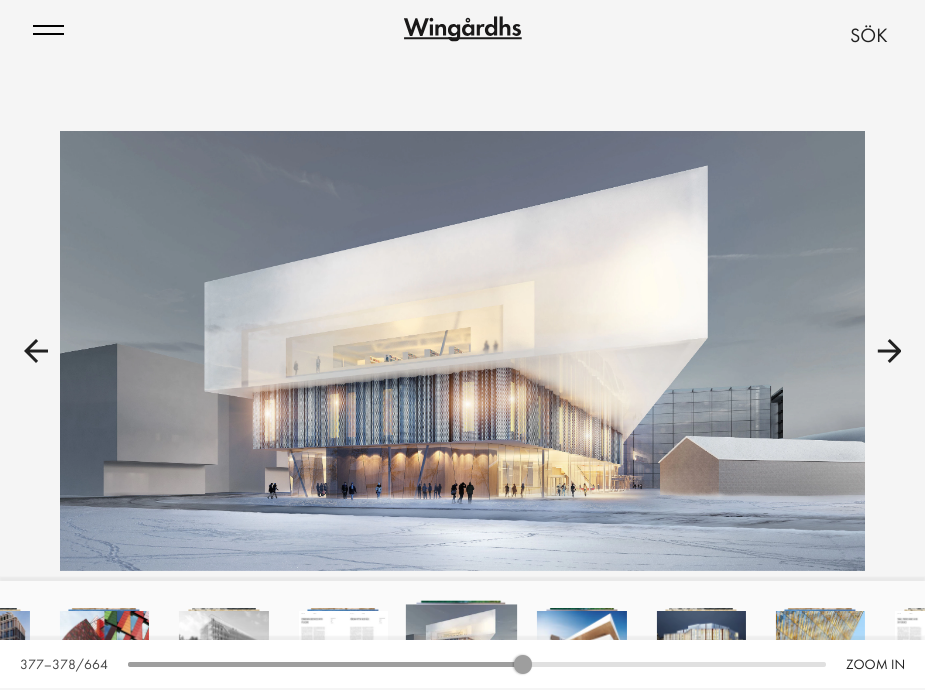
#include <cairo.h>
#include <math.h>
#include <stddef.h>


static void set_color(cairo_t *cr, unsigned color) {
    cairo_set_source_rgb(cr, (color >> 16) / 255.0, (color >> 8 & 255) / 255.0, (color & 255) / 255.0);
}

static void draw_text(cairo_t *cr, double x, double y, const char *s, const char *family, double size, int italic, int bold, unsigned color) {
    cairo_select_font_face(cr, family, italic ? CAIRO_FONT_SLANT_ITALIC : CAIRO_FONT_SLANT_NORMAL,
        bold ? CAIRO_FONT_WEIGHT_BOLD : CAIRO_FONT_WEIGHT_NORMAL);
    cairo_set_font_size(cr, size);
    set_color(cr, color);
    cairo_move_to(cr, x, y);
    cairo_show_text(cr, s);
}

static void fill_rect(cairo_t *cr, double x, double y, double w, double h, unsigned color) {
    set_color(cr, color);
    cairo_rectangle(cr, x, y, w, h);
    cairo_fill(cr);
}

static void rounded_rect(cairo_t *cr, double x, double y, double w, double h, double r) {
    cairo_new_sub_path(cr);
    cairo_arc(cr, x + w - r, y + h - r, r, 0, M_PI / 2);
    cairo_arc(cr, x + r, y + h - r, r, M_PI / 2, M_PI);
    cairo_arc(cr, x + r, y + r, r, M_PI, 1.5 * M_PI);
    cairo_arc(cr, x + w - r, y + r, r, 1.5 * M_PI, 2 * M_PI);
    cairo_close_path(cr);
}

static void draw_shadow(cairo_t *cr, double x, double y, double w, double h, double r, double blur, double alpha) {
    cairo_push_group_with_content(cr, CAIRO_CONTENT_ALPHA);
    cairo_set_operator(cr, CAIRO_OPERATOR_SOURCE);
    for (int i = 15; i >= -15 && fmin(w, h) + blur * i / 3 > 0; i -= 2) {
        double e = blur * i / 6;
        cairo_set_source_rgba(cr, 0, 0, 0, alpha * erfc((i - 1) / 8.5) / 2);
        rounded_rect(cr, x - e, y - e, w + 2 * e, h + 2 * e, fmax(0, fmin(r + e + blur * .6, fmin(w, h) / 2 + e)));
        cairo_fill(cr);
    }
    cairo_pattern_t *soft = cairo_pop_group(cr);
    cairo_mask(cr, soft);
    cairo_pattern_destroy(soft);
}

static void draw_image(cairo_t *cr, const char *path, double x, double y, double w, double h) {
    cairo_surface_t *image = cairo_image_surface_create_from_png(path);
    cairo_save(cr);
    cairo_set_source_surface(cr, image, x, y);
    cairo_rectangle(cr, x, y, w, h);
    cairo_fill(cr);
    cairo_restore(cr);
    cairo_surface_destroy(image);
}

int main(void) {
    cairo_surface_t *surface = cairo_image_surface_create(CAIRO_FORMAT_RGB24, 925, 690);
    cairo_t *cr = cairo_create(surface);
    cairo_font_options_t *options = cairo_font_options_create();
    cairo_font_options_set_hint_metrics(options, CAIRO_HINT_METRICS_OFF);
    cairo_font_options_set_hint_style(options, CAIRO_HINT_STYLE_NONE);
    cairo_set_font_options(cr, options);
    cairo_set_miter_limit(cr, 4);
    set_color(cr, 0xF5F5F5);
    cairo_paint(cr);
    fill_rect(cr, 33, 25, 31, 2, 0x000000);
    fill_rect(cr, 33, 33, 31, 2, 0x000000);
    draw_image(cr, "assets/img1.png", 404, 16, 118, 26);
    draw_text(cr, 850, 42, "SÖK", "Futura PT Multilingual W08", 20, 0, 0, 0x212121);
    draw_image(cr, "assets/img2.png", 24, 339, 24, 24);
    draw_image(cr, "assets/img3.png", 60, 131, 805, 440);
    draw_image(cr, "assets/img4.png", 877, 339, 24, 24);
    set_color(cr, 0x000000);
    draw_shadow(cr, 0, 577, 925, 99, 0, 1, 0.05);
    fill_rect(cr, 0, 581, 925, 59, 0xFAFAFA);
    draw_image(cr, "assets/img5.png", 0, 608, 21, 3);
    draw_image(cr, "assets/img6.png", 0, 611, 30, 29);
    draw_image(cr, "assets/img7.png", 68, 608, 72, 3);
    draw_image(cr, "assets/img8.png", 59, 611, 90, 29);
    draw_image(cr, "assets/img9.png", 188, 608, 72, 3);
    draw_image(cr, "assets/img10.png", 178, 611, 91, 29);
    draw_image(cr, "assets/img7.png", 307, 608, 72, 3);
    draw_image(cr, "assets/img11.png", 299, 611, 89, 29);
    draw_image(cr, "assets/img13.png", 405, 604, 113, 36);
    draw_image(cr, "assets/img12.png", 416, 600, 90, 5);
    draw_image(cr, "assets/img14.png", 546, 608, 72, 3);
    draw_image(cr, "assets/img15.png", 536, 611, 91, 29);
    draw_image(cr, "assets/img9.png", 665, 608, 72, 3);
    draw_image(cr, "assets/img16.png", 656, 611, 90, 29);
    draw_image(cr, "assets/img7.png", 784, 608, 72, 3);
    draw_image(cr, "assets/img17.png", 775, 611, 90, 29);
    draw_image(cr, "assets/img18.png", 904, 608, 21, 3);
    draw_image(cr, "assets/img19.png", 895, 611, 30, 29);
    set_color(cr, 0x000000);
    draw_shadow(cr, 0, 636, 925, 48, 0, 1, 0.05);
    fill_rect(cr, 0, 640, 925, 48, 0xFFFFFF);
    draw_text(cr, 20, 669, "377–378/664", "Futura PT Multilingual W08", 14, 0, 0, 0x424242);
    set_color(cr, 0xE0E0E0);
    rounded_rect(cr, 128, 662, 698, 5, 2);
    cairo_fill(cr);
    set_color(cr, 0x9E9E9E);
    cairo_new_path(cr);
    cairo_move_to(cr, 130, 662);
    cairo_line_to(cr, 524, 662);
    cairo_line_to(cr, 524, 667);
    cairo_line_to(cr, 130, 667);
    cairo_curve_to(cr, 129, 667, 128, 666, 128, 665);
    cairo_line_to(cr, 128, 664);
    cairo_curve_to(cr, 128, 663, 129, 662, 130, 662);
    cairo_close_path(cr);
    cairo_fill(cr);
    set_color(cr, 0x000000);
    draw_shadow(cr, 513, 655, 18, 19, 9, 1, 0.25);
    set_color(cr, 0x9E9E9E);
    rounded_rect(cr, 514, 655, 18, 19, 9);
    cairo_fill(cr);
    draw_text(cr, 846, 669, "ZOOM IN", "Futura PT Multilingual W08", 14, 0, 0, 0x212121);
    cairo_surface_write_to_png(surface, "output.png");
    cairo_font_options_destroy(options);
    cairo_destroy(cr);
    cairo_surface_destroy(surface);
    return 0;
}
